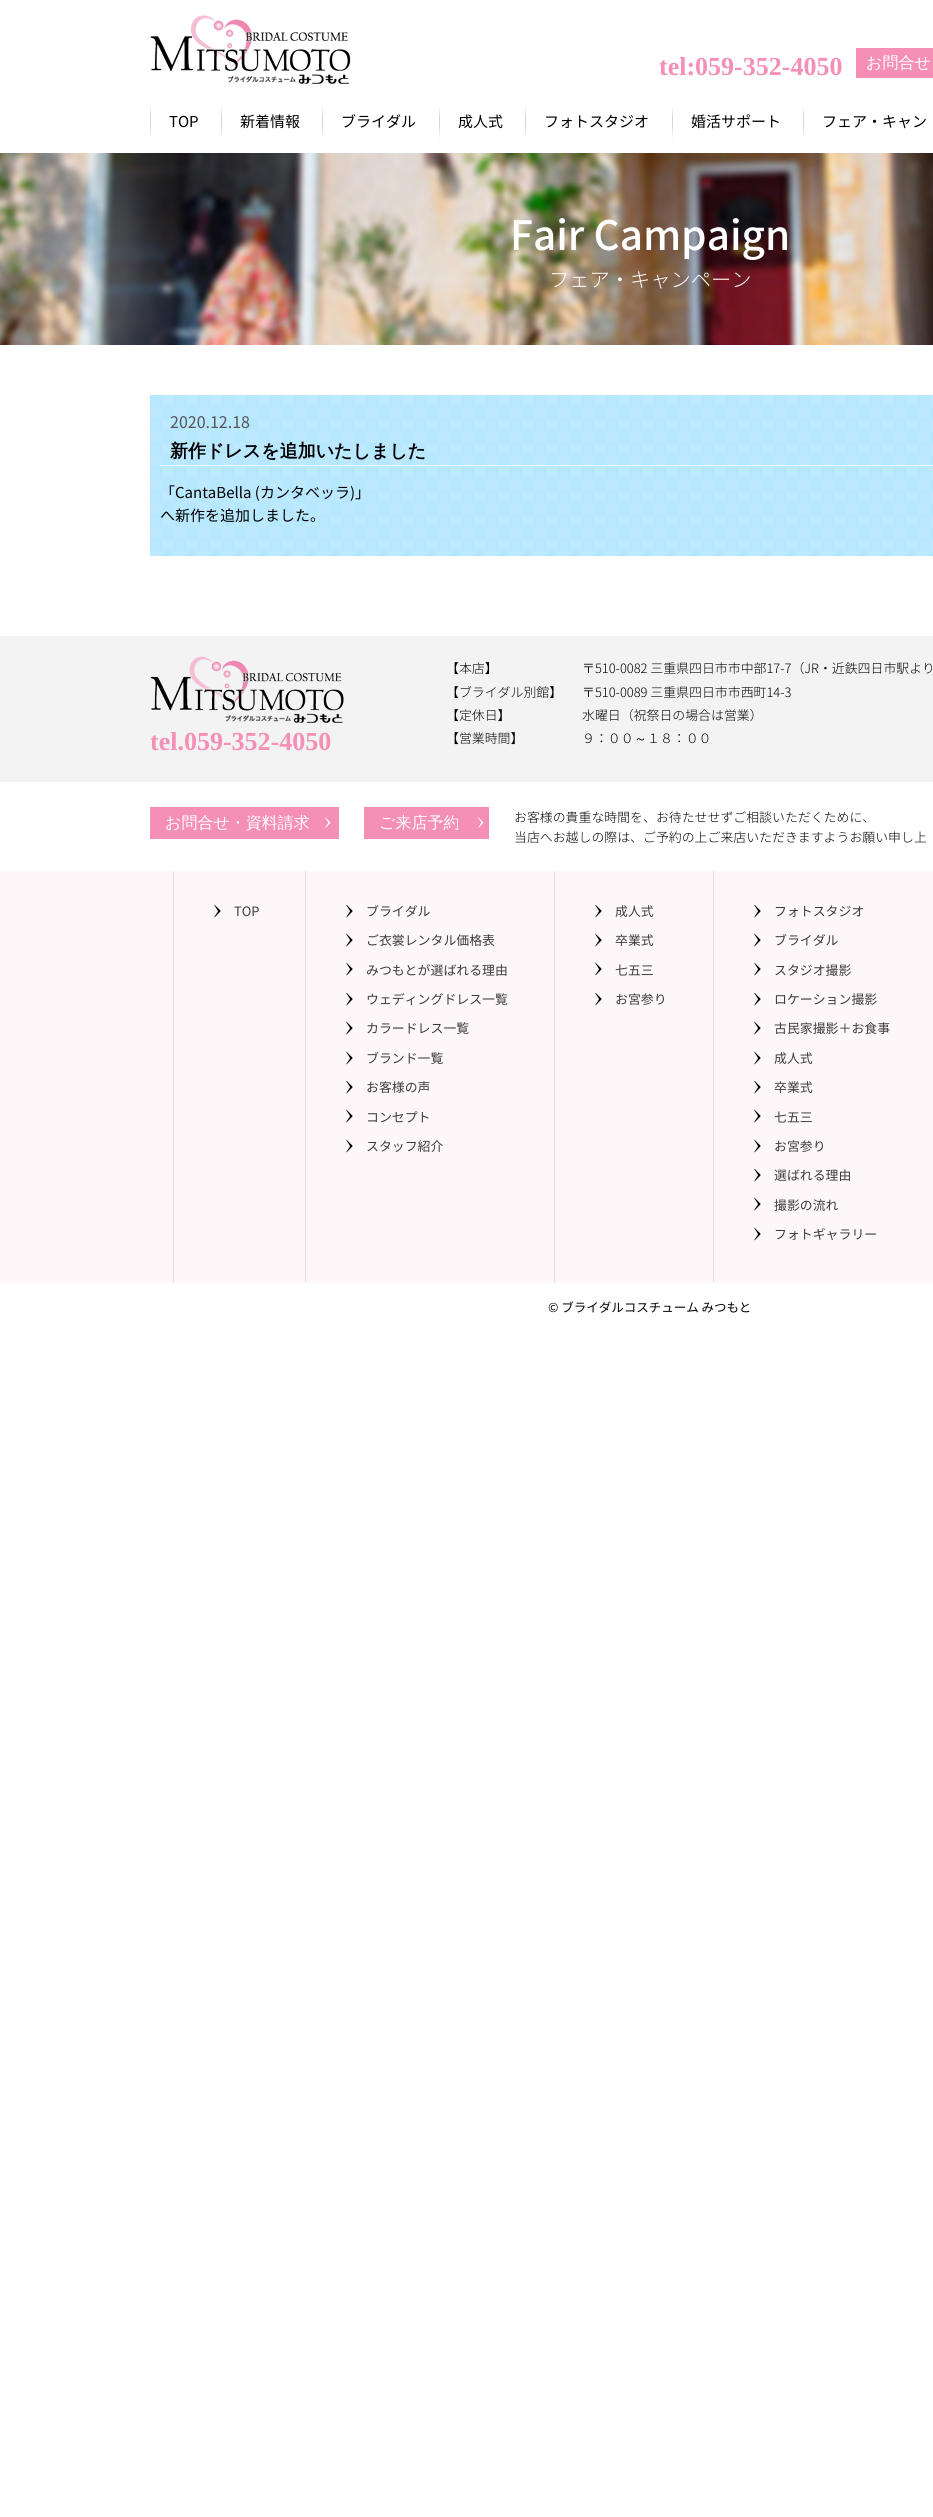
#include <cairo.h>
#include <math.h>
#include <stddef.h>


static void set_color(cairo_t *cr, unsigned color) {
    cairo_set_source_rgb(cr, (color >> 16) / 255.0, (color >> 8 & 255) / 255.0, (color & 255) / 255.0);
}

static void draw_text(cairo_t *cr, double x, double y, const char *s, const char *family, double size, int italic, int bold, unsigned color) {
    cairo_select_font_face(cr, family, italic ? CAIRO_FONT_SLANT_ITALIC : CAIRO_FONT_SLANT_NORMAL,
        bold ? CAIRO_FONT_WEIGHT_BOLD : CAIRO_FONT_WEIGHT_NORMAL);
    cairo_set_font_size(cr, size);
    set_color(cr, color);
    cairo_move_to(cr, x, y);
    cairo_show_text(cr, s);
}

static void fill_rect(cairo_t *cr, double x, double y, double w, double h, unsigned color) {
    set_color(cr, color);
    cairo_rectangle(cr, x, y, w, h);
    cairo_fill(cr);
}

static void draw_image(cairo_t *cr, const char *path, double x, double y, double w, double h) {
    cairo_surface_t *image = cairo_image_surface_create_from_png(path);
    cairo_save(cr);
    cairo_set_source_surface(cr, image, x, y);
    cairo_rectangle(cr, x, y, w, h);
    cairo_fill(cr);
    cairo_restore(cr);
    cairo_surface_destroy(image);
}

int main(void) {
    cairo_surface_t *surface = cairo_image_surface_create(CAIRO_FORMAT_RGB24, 933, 2517);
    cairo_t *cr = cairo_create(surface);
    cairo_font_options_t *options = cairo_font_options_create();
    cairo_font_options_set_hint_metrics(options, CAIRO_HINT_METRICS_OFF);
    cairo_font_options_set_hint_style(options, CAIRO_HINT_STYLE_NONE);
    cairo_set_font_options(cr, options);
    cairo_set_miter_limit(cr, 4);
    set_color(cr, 0xFFFFFF);
    cairo_paint(cr);
    draw_image(cr, "assets/img1.png", 150, 15, 201, 69);
    draw_text(cr, 659, 75, "tel:059-352-4050", "Liberation Serif", 26, 0, 1, 0xF58FB6);
    fill_rect(cr, 856, 48, 77, 30, 0xF58FB6);
    draw_text(cr, 866, 68, "お問合せ", "WenQuanYi Zen Hei Medium", 16, 0, 0, 0xFFFFFF);
    draw_image(cr, "assets/img2.png", 150, 106, 1, 33);
    draw_text(cr, 169, 127, "TOP", "Noto Sans JP", 15, 0, 0, 0x000000);
    draw_image(cr, "assets/img2.png", 221, 106, 1, 33);
    draw_text(cr, 240, 127, "新着情報", "Noto Sans JP", 15, 0, 0, 0x000000);
    draw_image(cr, "assets/img2.png", 322, 106, 1, 33);
    draw_text(cr, 341, 127, "ブライダル", "Noto Sans JP", 15, 0, 0, 0x000000);
    draw_image(cr, "assets/img2.png", 439, 106, 1, 33);
    draw_text(cr, 458, 127, "成人式", "Noto Sans JP", 15, 0, 0, 0x000000);
    draw_image(cr, "assets/img2.png", 525, 106, 1, 33);
    draw_text(cr, 544, 127, "フォトスタジオ", "Noto Sans JP", 15, 0, 0, 0x000000);
    draw_image(cr, "assets/img2.png", 672, 106, 1, 33);
    draw_text(cr, 691, 127, "婚活サポート", "Noto Sans JP", 15, 0, 0, 0x000000);
    draw_image(cr, "assets/img2.png", 803, 106, 1, 33);
    draw_text(cr, 822, 127, "フェア・キャン", "Noto Sans JP", 15, 0, 0, 0x000000);
    draw_image(cr, "assets/img3.png", 0, 153, 933, 192);
    draw_text(cr, 510, 250, "Fair Campaign", "Noto Sans JP Medium", 40.5, 0, 0, 0xFFFFFF);
    draw_text(cr, 549, 287, "フェア・キャンペーン", "Noto Sans JP Light", 20.25, 0, 0, 0xFFFFFF);
    draw_image(cr, "assets/img4.png", 150, 395, 783, 161);
    draw_text(cr, 170, 428, "2020.12.18", "Noto Sans JP", 16, 0, 0, 0x555555);
    fill_rect(cr, 160, 465, 773, 1, 0xFFFFFF);
    draw_text(cr, 170, 457, "新作ドレスを追加いたしました", "WenQuanYi Zen Hei", 18, 0, 1, 0x000000);
    draw_text(cr, 160, 498, "「CantaBella (カンタベッラ)」", "Noto Sans JP", 15, 0, 0, 0x000000);
    draw_text(cr, 160, 521, "へ新作を追加しました。", "Noto Sans JP", 15, 0, 0, 0x000000);
    fill_rect(cr, 0, 636, 933, 146, 0xF3F3F3);
    draw_image(cr, "assets/img5.png", 150, 656, 194, 67);
    draw_text(cr, 150, 750, "tel.059-352-4050", "Liberation Serif", 26, 0, 1, 0xF58FB6);
    draw_text(cr, 446, 673, "【本店】", "Noto Sans JP Light", 12.9, 0, 0, 0x000000);
    draw_text(cr, 582, 673, "〒510-0082 三重県四日市市中部17-7（JR・近鉄四日市駅より", "Noto Sans JP Light", 12.9, 0, 0, 0x000000);
    draw_text(cr, 446, 697, "【ブライダル別館】", "Noto Sans JP Light", 12.9, 0, 0, 0x000000);
    draw_text(cr, 582, 697, "〒510-0089 三重県四日市市西町14-3", "Noto Sans JP Light", 12.9, 0, 0, 0x000000);
    draw_text(cr, 446, 720, "【定休日】", "Noto Sans JP Light", 12.9, 0, 0, 0x000000);
    draw_text(cr, 582, 720, "水曜日（祝祭日の場合は営業）", "Noto Sans JP Light", 12.9, 0, 0, 0x000000);
    draw_text(cr, 446, 743, "【営業時間】", "Noto Sans JP Light", 12.9, 0, 0, 0x000000);
    draw_text(cr, 582, 743, "９：００", "Noto Sans JP Light", 12.9, 0, 0, 0x000000);
    draw_text(cr, 634, 743, "～", "WenQuanYi Zen Hei Medium", 12.9, 0, 0, 0x000000);
    draw_text(cr, 647, 743, "１８：００", "Noto Sans JP Light", 12.9, 0, 0, 0x000000);
    fill_rect(cr, 150, 807, 189, 32, 0xF58FB6);
    draw_image(cr, "assets/img6.png", 325, 817, 6, 11);
    draw_text(cr, 165, 828, "お問合せ・資料請求", "WenQuanYi Zen Hei Medium", 16, 0, 0, 0xFFFFFF);
    fill_rect(cr, 364, 807, 125, 32, 0xF58FB6);
    draw_image(cr, "assets/img6.png", 478, 817, 6, 11);
    draw_text(cr, 379, 828, "ご来店予約", "WenQuanYi Zen Hei Medium", 16, 0, 0, 0xFFFFFF);
    draw_text(cr, 514, 822, "お客様の貴重な時間を、お待たせせずご相談いただくために、", "Noto Sans JP Light", 12.9, 0, 0, 0x000000);
    draw_text(cr, 514, 842, "当店へお越しの際は、ご予約の上ご来店いただきますようお願い申し上", "Noto Sans JP Light", 12.9, 0, 0, 0x000000);
    fill_rect(cr, 0, 871, 933, 412, 0xFDF7F9);
    fill_rect(cr, 173, 871, 1, 412, 0xEDD8DF);
    draw_image(cr, "assets/img7.png", 214, 904, 7, 14);
    draw_text(cr, 234, 916, "TOP", "Noto Sans JP", 12.9, 0, 0, 0x3B3B3B);
    fill_rect(cr, 305, 871, 1, 412, 0xEDD8DF);
    draw_image(cr, "assets/img7.png", 346, 904, 7, 14);
    draw_text(cr, 366, 916, "ブライダル", "Noto Sans JP", 12.9, 0, 0, 0x3B3B3B);
    draw_image(cr, "assets/img7.png", 346, 933, 7, 14);
    draw_text(cr, 366, 945, "ご衣裳レンタル価格表", "Noto Sans JP", 12.9, 0, 0, 0x3B3B3B);
    draw_image(cr, "assets/img7.png", 346, 962, 7, 14);
    draw_text(cr, 366, 975, "みつもとが選ばれる理由", "Noto Sans JP", 12.9, 0, 0, 0x3B3B3B);
    draw_image(cr, "assets/img7.png", 346, 992, 7, 14);
    draw_text(cr, 366, 1004, "ウェディングドレス一覧", "Noto Sans JP", 12.9, 0, 0, 0x3B3B3B);
    draw_image(cr, "assets/img7.png", 346, 1021, 7, 14);
    draw_text(cr, 366, 1033, "カラードレス一覧", "Noto Sans JP", 12.9, 0, 0, 0x3B3B3B);
    draw_image(cr, "assets/img7.png", 346, 1051, 7, 14);
    draw_text(cr, 366, 1063, "ブランド一覧", "Noto Sans JP", 12.9, 0, 0, 0x3B3B3B);
    draw_image(cr, "assets/img7.png", 346, 1080, 7, 14);
    draw_text(cr, 366, 1092, "お客様の声", "Noto Sans JP", 12.9, 0, 0, 0x3B3B3B);
    draw_image(cr, "assets/img7.png", 346, 1109, 7, 14);
    draw_text(cr, 366, 1122, "コンセプト", "Noto Sans JP", 12.9, 0, 0, 0x3B3B3B);
    draw_image(cr, "assets/img7.png", 346, 1139, 7, 14);
    draw_text(cr, 366, 1151, "スタッフ紹介", "Noto Sans JP", 12.9, 0, 0, 0x3B3B3B);
    fill_rect(cr, 554, 871, 1, 412, 0xEDD8DF);
    draw_image(cr, "assets/img7.png", 595, 904, 7, 14);
    draw_text(cr, 615, 916, "成人式", "Noto Sans JP", 12.9, 0, 0, 0x3B3B3B);
    draw_image(cr, "assets/img7.png", 595, 933, 7, 14);
    draw_text(cr, 615, 945, "卒業式", "Noto Sans JP", 12.9, 0, 0, 0x3B3B3B);
    draw_image(cr, "assets/img7.png", 595, 962, 7, 14);
    draw_text(cr, 615, 975, "七五三", "Noto Sans JP", 12.9, 0, 0, 0x3B3B3B);
    draw_image(cr, "assets/img7.png", 595, 992, 7, 14);
    draw_text(cr, 615, 1004, "お宮参り", "Noto Sans JP", 12.9, 0, 0, 0x3B3B3B);
    fill_rect(cr, 713, 871, 1, 412, 0xEDD8DF);
    draw_image(cr, "assets/img7.png", 754, 904, 7, 14);
    draw_text(cr, 774, 916, "フォトスタジオ", "Noto Sans JP", 12.9, 0, 0, 0x3B3B3B);
    draw_image(cr, "assets/img7.png", 754, 933, 7, 14);
    draw_text(cr, 774, 945, "ブライダル", "Noto Sans JP", 12.9, 0, 0, 0x3B3B3B);
    draw_image(cr, "assets/img7.png", 754, 962, 7, 14);
    draw_text(cr, 774, 975, "スタジオ撮影", "Noto Sans JP", 12.9, 0, 0, 0x3B3B3B);
    draw_image(cr, "assets/img7.png", 754, 992, 7, 14);
    draw_text(cr, 774, 1004, "ロケーション撮影", "Noto Sans JP", 12.9, 0, 0, 0x3B3B3B);
    draw_image(cr, "assets/img7.png", 754, 1021, 7, 14);
    draw_text(cr, 774, 1033, "古民家撮影＋お食事", "Noto Sans JP", 12.9, 0, 0, 0x3B3B3B);
    draw_image(cr, "assets/img7.png", 754, 1051, 7, 14);
    draw_text(cr, 774, 1063, "成人式", "Noto Sans JP", 12.9, 0, 0, 0x3B3B3B);
    draw_image(cr, "assets/img7.png", 754, 1080, 7, 14);
    draw_text(cr, 774, 1092, "卒業式", "Noto Sans JP", 12.9, 0, 0, 0x3B3B3B);
    draw_image(cr, "assets/img7.png", 754, 1109, 7, 14);
    draw_text(cr, 774, 1122, "七五三", "Noto Sans JP", 12.9, 0, 0, 0x3B3B3B);
    draw_image(cr, "assets/img7.png", 754, 1139, 7, 14);
    draw_text(cr, 774, 1151, "お宮参り", "Noto Sans JP", 12.9, 0, 0, 0x3B3B3B);
    draw_image(cr, "assets/img7.png", 754, 1168, 7, 14);
    draw_text(cr, 774, 1180, "選ばれる理由", "Noto Sans JP", 12.9, 0, 0, 0x3B3B3B);
    draw_image(cr, "assets/img7.png", 754, 1197, 7, 14);
    draw_text(cr, 774, 1210, "撮影の流れ", "Noto Sans JP", 12.9, 0, 0, 0x3B3B3B);
    draw_image(cr, "assets/img7.png", 754, 1227, 7, 14);
    draw_text(cr, 774, 1239, "フォトギャラリー", "Noto Sans JP", 12.9, 0, 0, 0x3B3B3B);
    draw_text(cr, 548, 1312, "© ブライダルコスチューム みつもと", "Noto Sans JP", 12.5, 0, 0, 0x000000);
    cairo_surface_write_to_png(surface, "output.png");
    cairo_font_options_destroy(options);
    cairo_destroy(cr);
    cairo_surface_destroy(surface);
    return 0;
}
